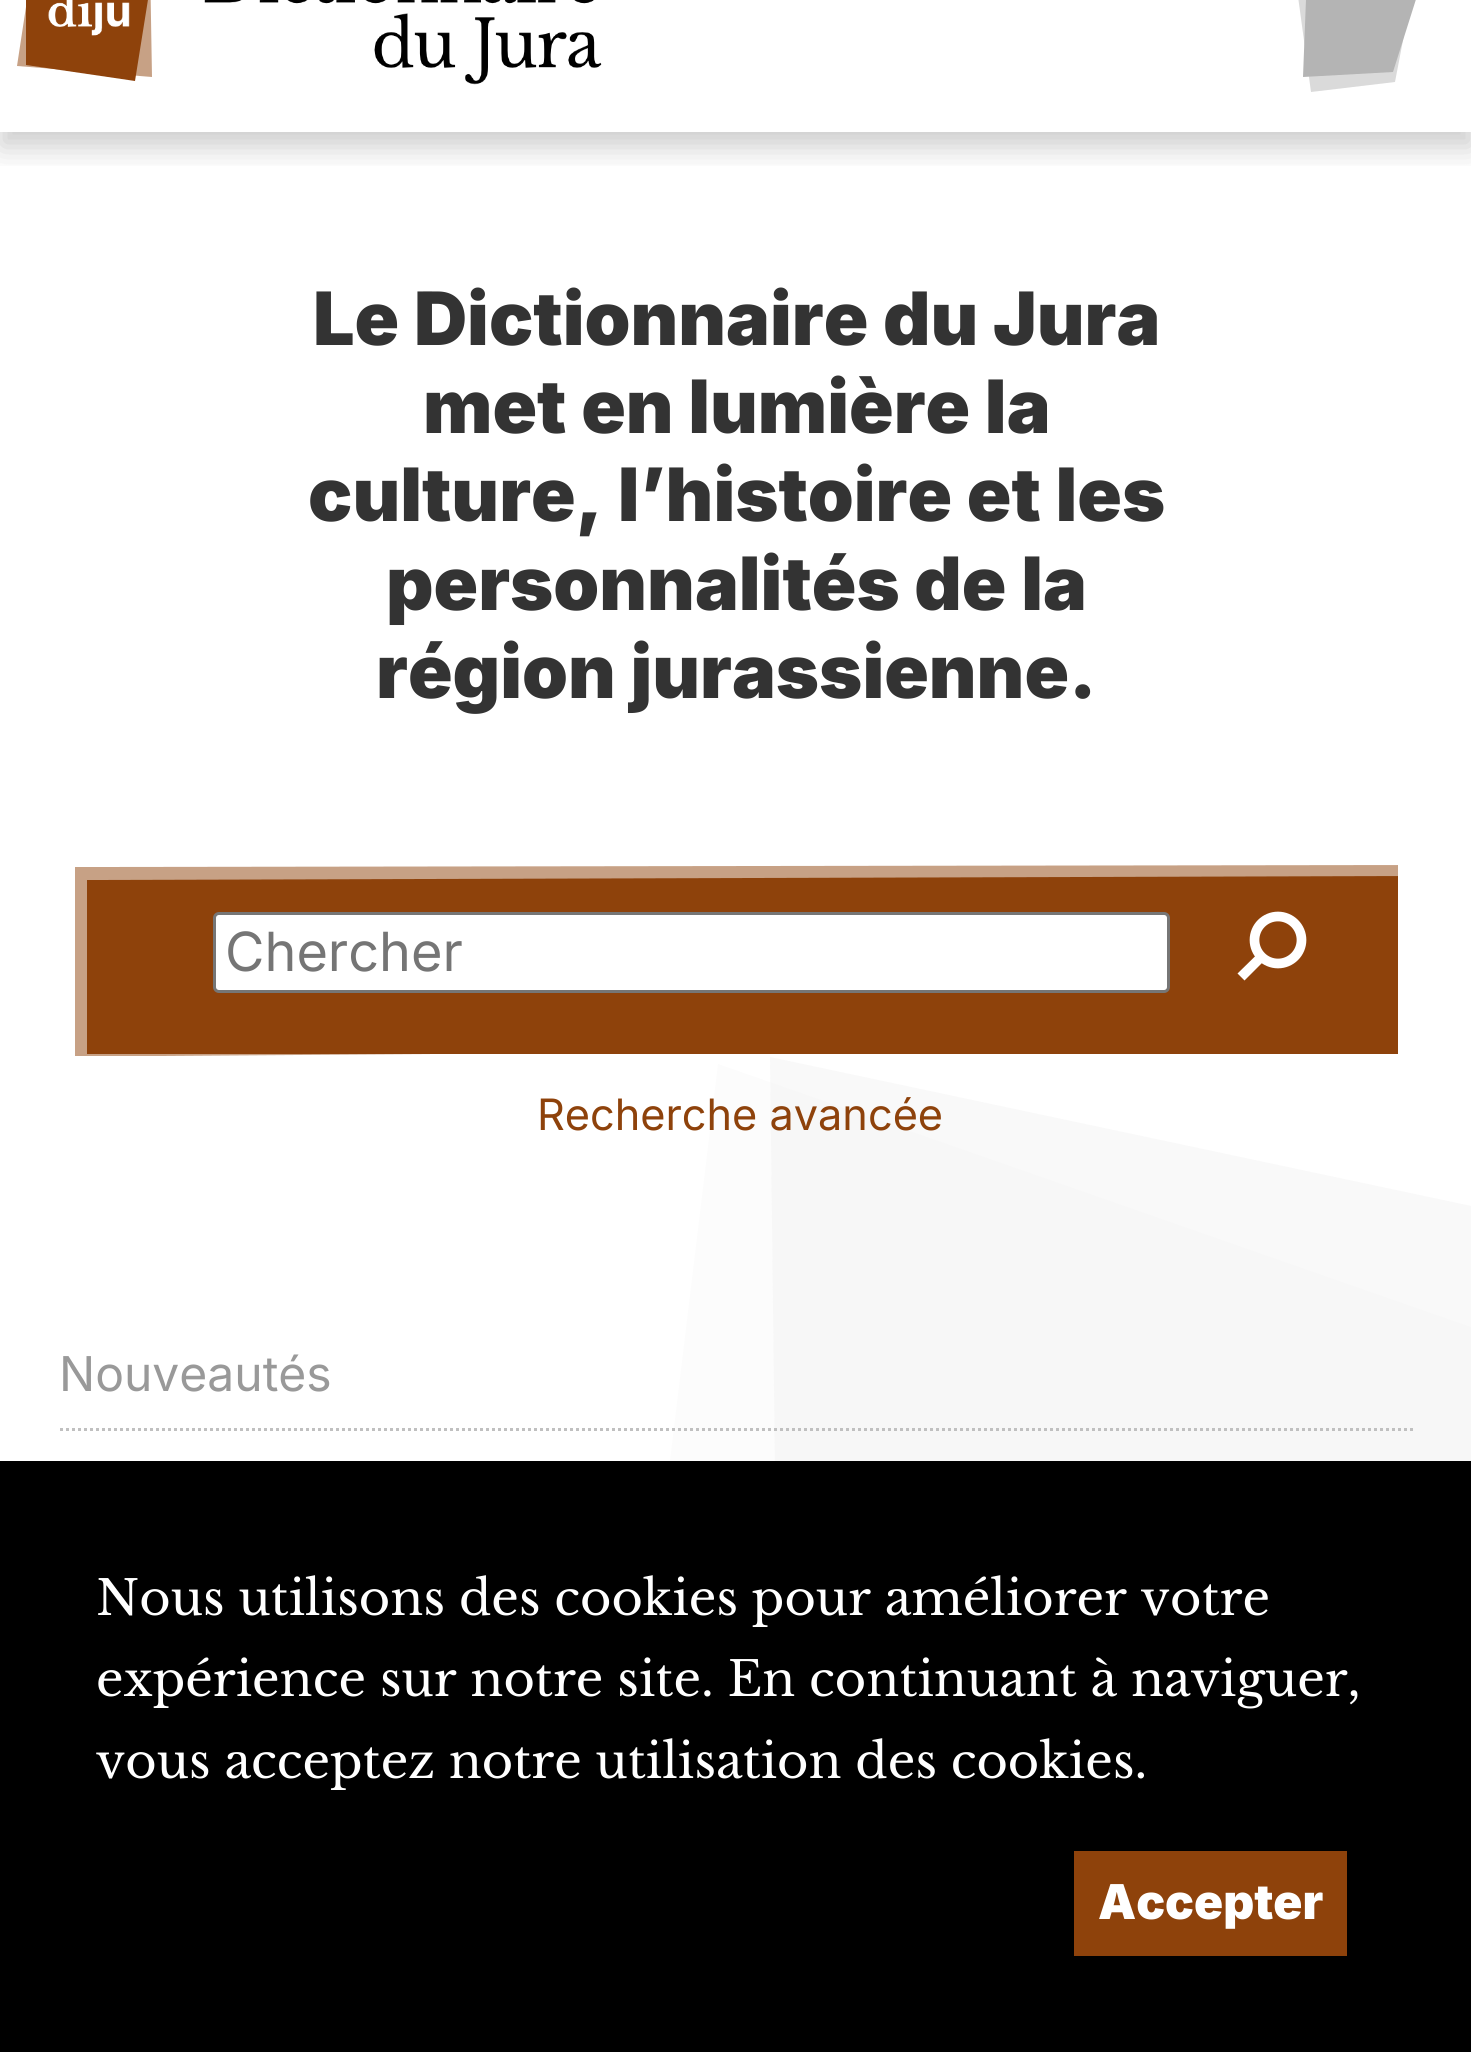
#include <cairo.h>
#include <math.h>
#include <stddef.h>


static void set_color(cairo_t *cr, unsigned color) {
    cairo_set_source_rgb(cr, (color >> 16) / 255.0, (color >> 8 & 255) / 255.0, (color & 255) / 255.0);
}

static void draw_text(cairo_t *cr, double x, double y, const char *s, const char *family, double size, int italic, int bold, unsigned color) {
    cairo_select_font_face(cr, family, italic ? CAIRO_FONT_SLANT_ITALIC : CAIRO_FONT_SLANT_NORMAL,
        bold ? CAIRO_FONT_WEIGHT_BOLD : CAIRO_FONT_WEIGHT_NORMAL);
    cairo_set_font_size(cr, size);
    set_color(cr, color);
    cairo_move_to(cr, x, y);
    cairo_show_text(cr, s);
}

static void fill_rect(cairo_t *cr, double x, double y, double w, double h, unsigned color) {
    set_color(cr, color);
    cairo_rectangle(cr, x, y, w, h);
    cairo_fill(cr);
}

static void rounded_rect(cairo_t *cr, double x, double y, double w, double h, double r) {
    cairo_new_sub_path(cr);
    cairo_arc(cr, x + w - r, y + h - r, r, 0, M_PI / 2);
    cairo_arc(cr, x + r, y + h - r, r, M_PI / 2, M_PI);
    cairo_arc(cr, x + r, y + r, r, M_PI, 1.5 * M_PI);
    cairo_arc(cr, x + w - r, y + r, r, 1.5 * M_PI, 2 * M_PI);
    cairo_close_path(cr);
}

static void draw_shadow(cairo_t *cr, double x, double y, double w, double h, double r, double blur, double alpha) {
    cairo_push_group_with_content(cr, CAIRO_CONTENT_ALPHA);
    cairo_set_operator(cr, CAIRO_OPERATOR_SOURCE);
    for (int i = 15; i >= -15 && fmin(w, h) + blur * i / 3 > 0; i -= 2) {
        double e = blur * i / 6;
        cairo_set_source_rgba(cr, 0, 0, 0, alpha * erfc((i - 1) / 8.5) / 2);
        rounded_rect(cr, x - e, y - e, w + 2 * e, h + 2 * e, fmax(0, fmin(r + e + blur * .6, fmin(w, h) / 2 + e)));
        cairo_fill(cr);
    }
    cairo_pattern_t *soft = cairo_pop_group(cr);
    cairo_mask(cr, soft);
    cairo_pattern_destroy(soft);
}

static void draw_image(cairo_t *cr, const char *path, double x, double y, double w, double h) {
    cairo_surface_t *image = cairo_image_surface_create_from_png(path);
    cairo_save(cr);
    cairo_set_source_surface(cr, image, x, y);
    cairo_rectangle(cr, x, y, w, h);
    cairo_fill(cr);
    cairo_restore(cr);
    cairo_surface_destroy(image);
}

int main(void) {
    cairo_surface_t *surface = cairo_image_surface_create(CAIRO_FORMAT_RGB24, 1471, 2052);
    cairo_t *cr = cairo_create(surface);
    cairo_font_options_t *options = cairo_font_options_create();
    cairo_font_options_set_hint_metrics(options, CAIRO_HINT_METRICS_OFF);
    cairo_font_options_set_hint_style(options, CAIRO_HINT_STYLE_NONE);
    cairo_set_font_options(cr, options);
    cairo_set_miter_limit(cr, 4);
    set_color(cr, 0xFFFFFF);
    cairo_paint(cr);
    cairo_save(cr);
    cairo_rectangle(cr, 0, 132, 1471, 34);
    cairo_clip(cr);
    set_color(cr, 0x000000);
    draw_shadow(cr, 0, -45, 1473, 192, 0, 15, 0.2);
    cairo_restore(cr);
    set_color(cr, 0xC7A185);
    cairo_set_fill_rule(cr, CAIRO_FILL_RULE_EVEN_ODD);
    cairo_new_path(cr);
    cairo_move_to(cr, 36, -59);
    cairo_line_to(cr, 150, -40);
    cairo_line_to(cr, 152, 77);
    cairo_line_to(cr, 17, 66);
    cairo_close_path(cr);
    cairo_fill(cr);
    set_color(cr, 0x8E420B);
    cairo_new_path(cr);
    cairo_move_to(cr, 26, -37);
    cairo_line_to(cr, 26, 65);
    cairo_line_to(cr, 135, 81);
    cairo_line_to(cr, 154, -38);
    cairo_close_path(cr);
    cairo_fill(cr);
    draw_image(cr, "assets/img1.png", 48, 0, 82, 36);
    draw_image(cr, "assets/img2.png", 204, 0, 398, 85);
    set_color(cr, 0xDADADA);
    cairo_new_path(cr);
    cairo_move_to(cr, 1291, -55);
    cairo_line_to(cr, 1420, -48);
    cairo_line_to(cr, 1395, 82);
    cairo_line_to(cr, 1311, 92);
    cairo_close_path(cr);
    cairo_fill(cr);
    set_color(cr, 0xB4B4B4);
    cairo_new_path(cr);
    cairo_move_to(cr, 1308, -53);
    cairo_line_to(cr, 1424, -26);
    cairo_line_to(cr, 1393, 72);
    cairo_line_to(cr, 1303, 77);
    cairo_close_path(cr);
    cairo_fill(cr);
    draw_text(cr, 313, 345, "Le Dictionnaire du Jura", "Inter Black", 73.6, 0, 0, 0x333333);
    draw_text(cr, 423, 433, "met en lumière la", "Inter Black", 73.6, 0, 0, 0x333333);
    draw_text(cr, 308, 521, "culture, l’histoire et les", "Inter Black", 73.6, 0, 0, 0x333333);
    draw_text(cr, 386, 610, "personnalités de la", "Inter Black", 73.6, 0, 0, 0x333333);
    draw_text(cr, 376, 698, "région jurassienne.", "Inter Black", 73.6, 0, 0, 0x333333);
    set_color(cr, 0xC7A185);
    cairo_set_fill_rule(cr, CAIRO_FILL_RULE_WINDING);
    cairo_new_path(cr);
    cairo_move_to(cr, 157, 1056);
    cairo_line_to(cr, 75, 1056);
    cairo_line_to(cr, 75, 867);
    cairo_line_to(cr, 1398, 865);
    cairo_line_to(cr, 1398, 883);
    cairo_line_to(cr, 1386, 1047);
    cairo_close_path(cr);
    cairo_fill(cr);
    set_color(cr, 0x8E420B);
    cairo_new_path(cr);
    cairo_move_to(cr, 87, 880);
    cairo_line_to(cr, 1398, 876);
    cairo_line_to(cr, 1398, 1054);
    cairo_line_to(cr, 87, 1054);
    cairo_close_path(cr);
    cairo_fill(cr);
    set_color(cr, 0xFFFFFF);
    rounded_rect(cr, 214.5, 913.5, 954, 78, 4.5);
    cairo_fill_preserve(cr);
    set_color(cr, 0x767676);
    cairo_set_line_width(cr, 3);
    cairo_stroke(cr);
    draw_text(cr, 225, 971, "Chercher", "Inter", 54, 0, 0, 0x757575);
    cairo_new_path(cr);
    cairo_arc(cr, 1278, 940, 23.5, 0, 2 * M_PI);
    set_color(cr, 0xFFFFFF);
    cairo_set_line_width(cr, 9.7);
    cairo_stroke(cr);
    cairo_set_fill_rule(cr, CAIRO_FILL_RULE_EVEN_ODD);
    cairo_new_path(cr);
    cairo_move_to(cr, 1244.5, 980.5);
    cairo_line_to(cr, 1237.5, 973.5);
    cairo_line_to(cr, 1261, 950.5);
    cairo_line_to(cr, 1267.5, 957.5);
    cairo_close_path(cr);
    cairo_fill(cr);
    set_color(cr, 0xFCFCFC);
    cairo_new_path(cr);
    cairo_move_to(cr, 718, 1064);
    cairo_line_to(cr, 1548, 1354);
    cairo_line_to(cr, 1310, 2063);
    cairo_line_to(cr, 615, 1915);
    cairo_line_to(cr, 718, 1064);
    cairo_fill(cr);
    cairo_set_source_rgba(cr, 0.922, 0.922, 0.922, 0.3);
    cairo_new_path(cr);
    cairo_move_to(cr, 770, 1057);
    cairo_line_to(cr, 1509, 1214);
    cairo_line_to(cr, 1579, 1920);
    cairo_line_to(cr, 782, 2051);
    cairo_close_path(cr);
    cairo_fill(cr);
    draw_text(cr, 537, 1130, "Recherche avancée", "Inter", 43.25, 0, 0, 0x8E420B);
    cairo_new_path(cr);
    cairo_move_to(cr, 60, 1429.5);
    cairo_line_to(cr, 1413, 1429.5);
    set_color(cr, 0xC0C0C0);
    cairo_set_line_width(cr, 3);
    cairo_set_dash(cr, (double[]){3, 3}, 2, 0);
    cairo_stroke(cr);
    draw_text(cr, 59, 1391, "Nouveautés", "Inter", 48, 0, 0, 0x999999);
    fill_rect(cr, 0, 1461, 1471, 591, 0x000000);
    draw_text(cr, 96, 1615, "Nous utilisons des cookies pour améliorer votre", "Libre Baskerville", 48, 0, 0, 0xFFFFFF);
    draw_text(cr, 96, 1696, "expérience sur notre site. En continuant à naviguer,", "Libre Baskerville", 48, 0, 0, 0xFFFFFF);
    draw_text(cr, 96, 1778, "vous acceptez notre utilisation des cookies.", "Libre Baskerville", 48, 0, 0, 0xFFFFFF);
    fill_rect(cr, 1074, 1851, 273, 105, 0x8E420B);
    draw_text(cr, 1098, 1919, "Accepter", "Inter Black", 48, 0, 0, 0xFFFFFF);
    cairo_surface_write_to_png(surface, "output.png");
    cairo_font_options_destroy(options);
    cairo_destroy(cr);
    cairo_surface_destroy(surface);
    return 0;
}
